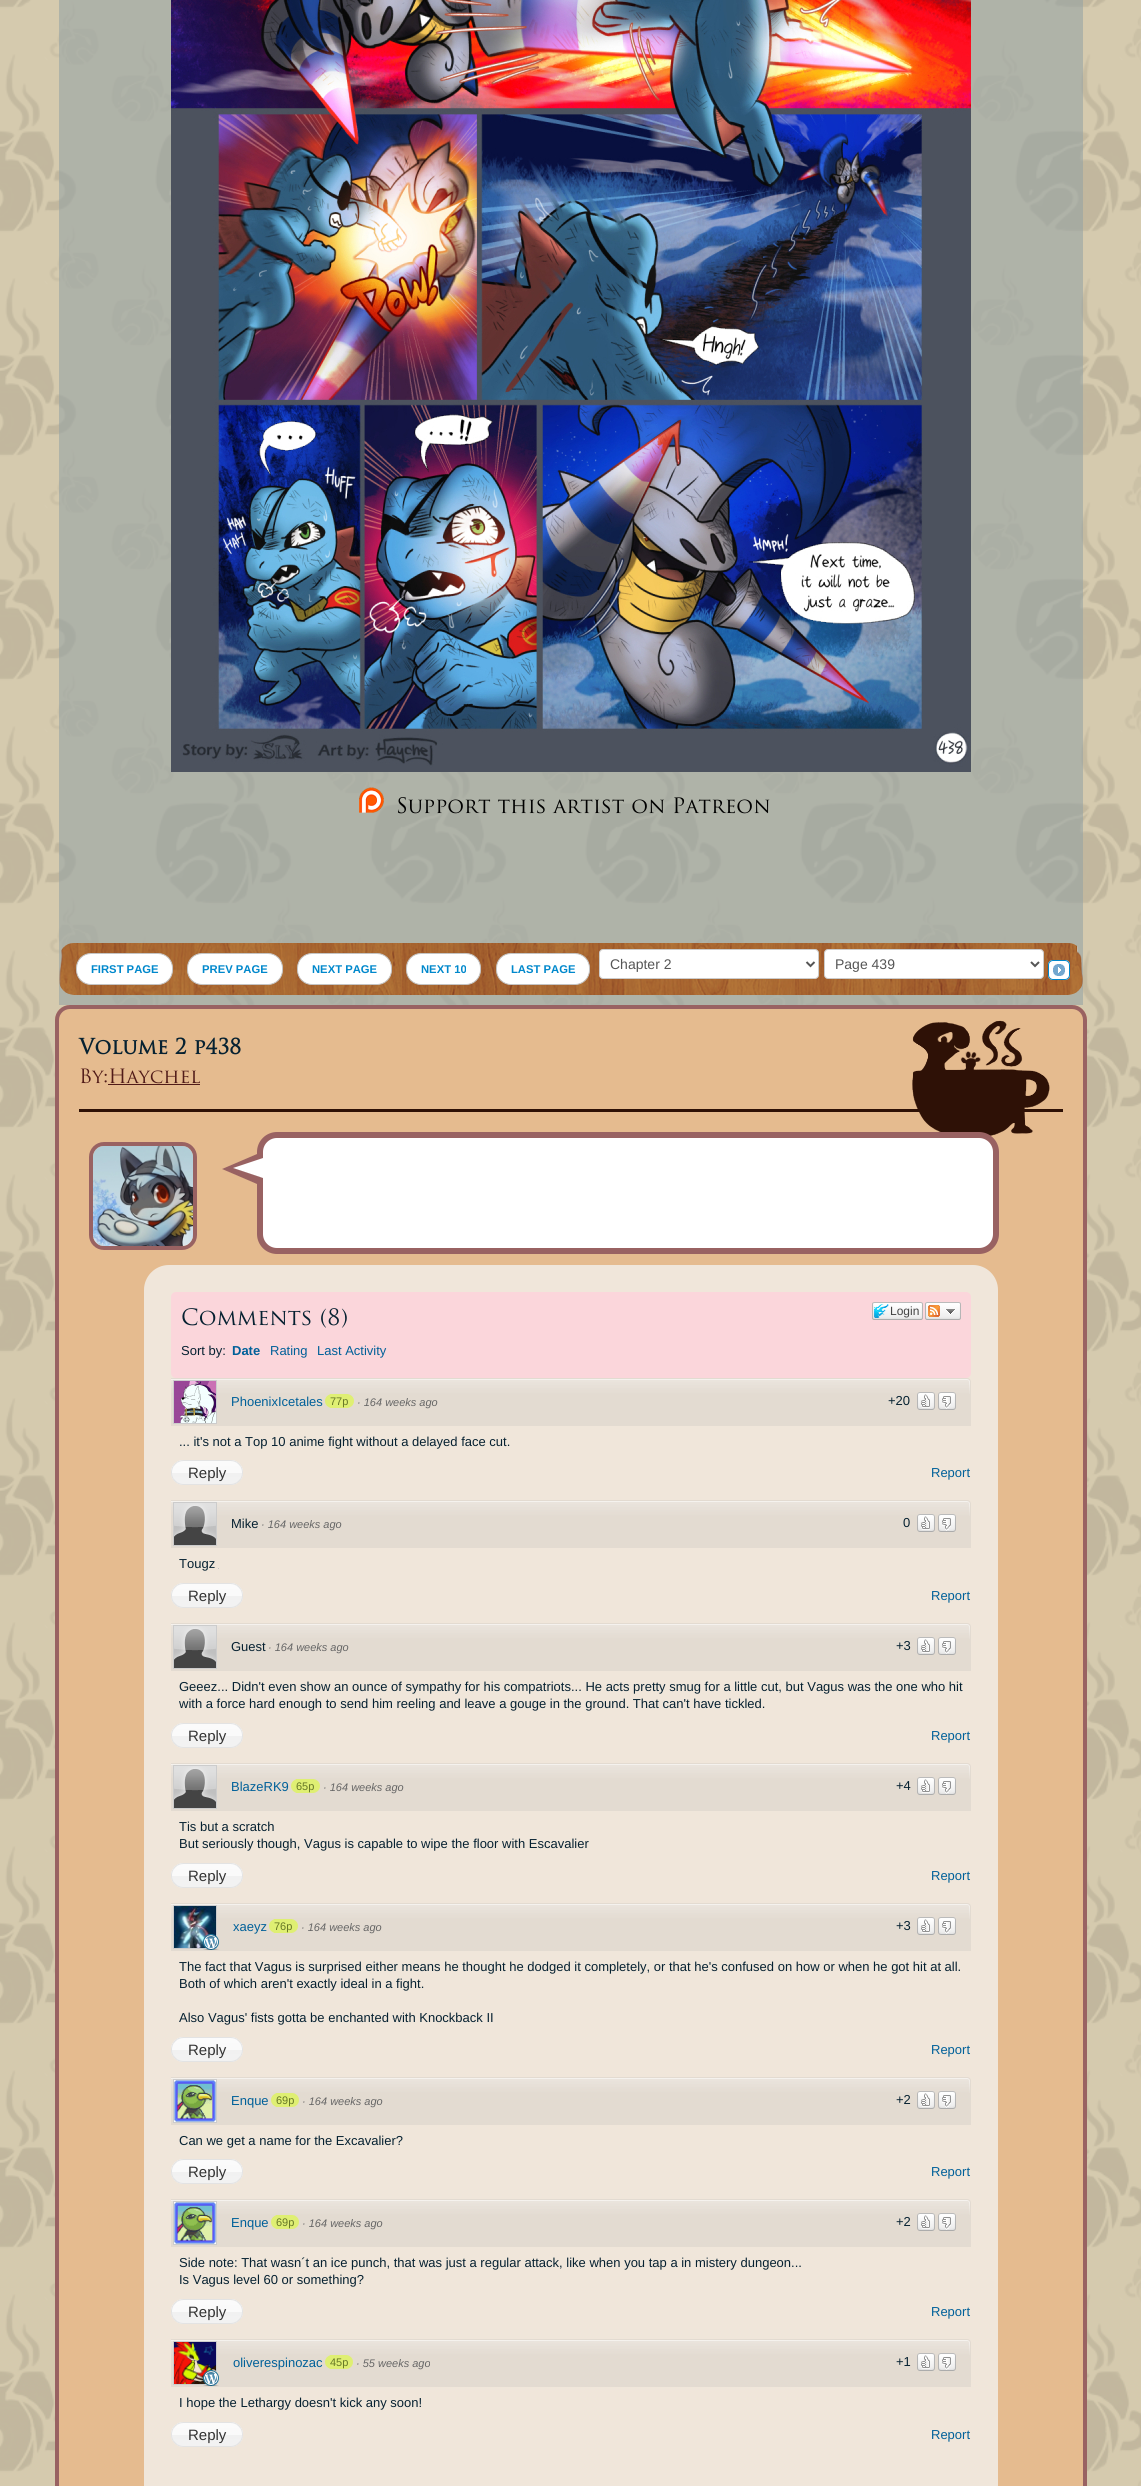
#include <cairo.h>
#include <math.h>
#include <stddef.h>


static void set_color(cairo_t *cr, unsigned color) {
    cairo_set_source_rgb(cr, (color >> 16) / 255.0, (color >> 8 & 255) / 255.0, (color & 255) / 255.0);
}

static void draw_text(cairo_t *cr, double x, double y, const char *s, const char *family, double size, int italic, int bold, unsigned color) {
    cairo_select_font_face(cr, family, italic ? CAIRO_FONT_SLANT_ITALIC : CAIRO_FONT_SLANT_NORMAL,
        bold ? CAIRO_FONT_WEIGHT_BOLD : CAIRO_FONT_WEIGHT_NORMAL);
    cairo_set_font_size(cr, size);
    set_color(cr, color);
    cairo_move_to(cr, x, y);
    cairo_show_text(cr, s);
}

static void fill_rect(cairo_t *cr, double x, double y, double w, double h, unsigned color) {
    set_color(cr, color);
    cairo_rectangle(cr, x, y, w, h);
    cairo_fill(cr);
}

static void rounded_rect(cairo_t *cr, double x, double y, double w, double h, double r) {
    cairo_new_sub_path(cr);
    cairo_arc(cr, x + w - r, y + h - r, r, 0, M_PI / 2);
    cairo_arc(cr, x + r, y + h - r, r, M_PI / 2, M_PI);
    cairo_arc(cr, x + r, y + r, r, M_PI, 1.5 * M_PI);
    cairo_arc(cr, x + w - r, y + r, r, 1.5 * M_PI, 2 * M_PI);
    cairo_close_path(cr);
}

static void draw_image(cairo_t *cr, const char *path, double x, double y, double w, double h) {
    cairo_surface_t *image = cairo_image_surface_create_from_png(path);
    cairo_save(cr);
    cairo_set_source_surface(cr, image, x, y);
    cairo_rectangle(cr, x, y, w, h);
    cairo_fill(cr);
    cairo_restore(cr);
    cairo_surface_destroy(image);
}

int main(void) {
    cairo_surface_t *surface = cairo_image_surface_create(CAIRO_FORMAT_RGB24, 1141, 2486);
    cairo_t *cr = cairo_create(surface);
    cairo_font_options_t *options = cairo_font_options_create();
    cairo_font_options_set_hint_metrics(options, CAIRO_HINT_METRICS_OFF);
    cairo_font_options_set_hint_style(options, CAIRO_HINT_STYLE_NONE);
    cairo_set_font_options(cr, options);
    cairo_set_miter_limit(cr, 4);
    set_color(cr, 0xFFFFFF);
    cairo_paint(cr);
    draw_image(cr, "assets/img1.png", 0, 0, 1141, 2486);
    cairo_set_source_rgba(cr, 0.58, 0.635, 0.643, 0.58);
    cairo_rectangle(cr, 59, 0, 1024, 1005);
    cairo_fill(cr);
    draw_image(cr, "assets/img2.png", 171, 0, 800, 772);
    draw_image(cr, "assets/img3.png", 359, 787, 25, 26);
    draw_text(cr, 396, 813, "Support this artist on Patreon", "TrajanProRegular", 20.75, 0, 0, 0x000000);
    draw_image(cr, "assets/img4.png", 59, 943, 1024, 52);
    set_color(cr, 0xFFFFFF);
    rounded_rect(cr, 76.5, 953.5, 96, 31, 14.5);
    cairo_fill_preserve(cr);
    set_color(cr, 0xC4C4C4);
    cairo_set_line_width(cr, 1);
    cairo_stroke(cr);
    draw_text(cr, 91, 973, "FIRST PAGE", "Liberation Sans", 11.25, 0, 1, 0x0088CC);
    set_color(cr, 0xFFFFFF);
    rounded_rect(cr, 187.5, 953.5, 95, 31, 14.5);
    cairo_fill_preserve(cr);
    set_color(cr, 0xC4C4C4);
    cairo_stroke(cr);
    draw_text(cr, 202, 973, "PREV PAGE", "Liberation Sans", 11.25, 0, 1, 0x0088CC);
    set_color(cr, 0xFFFFFF);
    rounded_rect(cr, 297.5, 953.5, 94, 31, 14.5);
    cairo_fill_preserve(cr);
    set_color(cr, 0xC4C4C4);
    cairo_stroke(cr);
    draw_text(cr, 312, 973, "NEXT PAGE", "Liberation Sans", 11.25, 0, 1, 0x0088CC);
    set_color(cr, 0xFFFFFF);
    rounded_rect(cr, 406.5, 953.5, 74, 31, 14.5);
    cairo_fill_preserve(cr);
    set_color(cr, 0xC4C4C4);
    cairo_stroke(cr);
    draw_text(cr, 421, 973, "NEXT 10", "Liberation Sans", 11.25, 0, 1, 0x0088CC);
    set_color(cr, 0xFFFFFF);
    rounded_rect(cr, 496.5, 953.5, 93, 31, 14.5);
    cairo_fill_preserve(cr);
    set_color(cr, 0xC4C4C4);
    cairo_stroke(cr);
    draw_text(cr, 511, 973, "LAST PAGE", "Liberation Sans", 11.25, 0, 1, 0x0088CC);
    set_color(cr, 0xFFFFFF);
    rounded_rect(cr, 599.5, 949.5, 219, 29, 3.5);
    cairo_fill_preserve(cr);
    set_color(cr, 0xCCCCCC);
    cairo_stroke(cr);
    cairo_new_path(cr);
    cairo_move_to(cr, 806.5, 962);
    cairo_line_to(cr, 810.5, 966);
    cairo_line_to(cr, 814.5, 962);
    set_color(cr, 0x555555);
    cairo_set_line_width(cr, 2);
    cairo_stroke(cr);
    draw_text(cr, 610, 969, "Chapter 2", "Liberation Sans", 14, 0, 0, 0x555555);
    set_color(cr, 0xFFFFFF);
    rounded_rect(cr, 824.5, 949.5, 219, 29, 3.5);
    cairo_fill_preserve(cr);
    set_color(cr, 0xCCCCCC);
    cairo_set_line_width(cr, 1);
    cairo_stroke(cr);
    cairo_new_path(cr);
    cairo_move_to(cr, 1031, 962);
    cairo_line_to(cr, 1035, 966);
    cairo_line_to(cr, 1039, 962);
    set_color(cr, 0x555555);
    cairo_set_line_width(cr, 2);
    cairo_stroke(cr);
    draw_text(cr, 835, 969, "Page 439", "Liberation Sans", 14, 0, 0, 0x555555);
    set_color(cr, 0xFFFFFF);
    rounded_rect(cr, 1048, 960, 22, 20, 5);
    cairo_fill(cr);
    draw_image(cr, "assets/img5.png", 1053, 964, 12, 12);
    rounded_rect(cr, 1048.5, 960.5, 21, 19, 4.5);
    set_color(cr, 0x0088CC);
    cairo_set_line_width(cr, 1);
    cairo_stroke(cr);
    set_color(cr, 0xE5BB8F);
    rounded_rect(cr, 55, 1005, 1032, 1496, 15);
    cairo_fill(cr);
    draw_image(cr, "assets/img6.png", 912, 1020, 138, 116);
    rounded_rect(cr, 57, 1007, 1028, 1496, 13);
    set_color(cr, 0x996262);
    cairo_set_line_width(cr, 4);
    cairo_stroke(cr);
    draw_text(cr, 79, 1054, "Volume 2 p438", "TrajanProRegular", 20.75, 0, 1, 0x062131);
    draw_text(cr, 79, 1083, "By:Haychel", "TrajanProRegular", 19.25, 0, 0, 0x511B18);
    fill_rect(cr, 108, 1084, 92, 1, 0x511B18);
    fill_rect(cr, 79, 1109, 984, 3, 0x2E1106);
    rounded_rect(cr, 91, 1144, 104, 104, 13);
    set_color(cr, 0x996262);
    cairo_stroke(cr);
    draw_image(cr, "assets/img7.png", 93, 1146, 100, 100);
    set_color(cr, 0xFFFFFF);
    rounded_rect(cr, 260, 1135, 736, 116, 17);
    cairo_fill_preserve(cr);
    set_color(cr, 0x996262);
    cairo_set_line_width(cr, 6);
    cairo_stroke(cr);
    cairo_new_path(cr);
    cairo_move_to(cr, 257, 1154);
    cairo_line_to(cr, 257, 1184);
    cairo_line_to(cr, 222, 1169);
    cairo_close_path(cr);
    cairo_fill(cr);
    set_color(cr, 0xFFFFFF);
    cairo_new_path(cr);
    cairo_move_to(cr, 263, 1158);
    cairo_line_to(cr, 263, 1178);
    cairo_line_to(cr, 233, 1168);
    cairo_close_path(cr);
    cairo_fill(cr);
    set_color(cr, 0xF0E6DA);
    rounded_rect(cr, 145, 1266, 852, 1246, 24);
    cairo_fill_preserve(cr);
    cairo_set_line_width(cr, 2);
    cairo_stroke(cr);
    set_color(cr, 0xFBD6DB);
    rounded_rect(cr, 171, 1292, 800, 86, 5);
    cairo_fill(cr);
    draw_text(cr, 181, 1325, "Comments (8)", "TrajanProRegular", 22, 0, 0, 0x062131);
    draw_image(cr, "assets/img8.png", 872, 1302, 48, 18);
    draw_text(cr, 890, 1315, "Login", "Liberation Sans", 12, 0, 0, 0x444444);
    draw_image(cr, "assets/img9.png", 920, 1302, 3, 18);
    draw_image(cr, "assets/img10.png", 925, 1302, 36, 18);
    draw_text(cr, 181, 1355, "Sort by:", "Liberation Sans", 13, 0, 0, 0x062131);
    draw_text(cr, 232, 1355, "Date", "Liberation Sans", 13, 0, 1, 0x006099);
    draw_text(cr, 270, 1355, "Rating", "Liberation Sans", 13, 0, 0, 0x006099);
    draw_text(cr, 317, 1355, "Last Activity", "Liberation Sans", 13, 0, 0, 0x006099);
    draw_image(cr, "assets/img11.png", 171, 1378, 800, 48);
    fill_rect(cr, 173, 1380, 44, 44, 0xCCCCCC);
    draw_image(cr, "assets/img12.png", 174, 1381, 42, 42);
    draw_text(cr, 231, 1406, "PhoenixIcetales", "Liberation Sans", 13, 0, 0, 0x006099);
    draw_image(cr, "assets/img13.png", 325, 1394, 5, 14);
    draw_image(cr, "assets/img14.png", 330, 1394, 24, 14);
    draw_text(cr, 330, 1405, "77p", "Liberation Sans", 11, 0, 0, 0x667726);
    draw_text(cr, 357, 1406, "· 164 weeks ago", "Liberation Sans", 11, 1, 0, 0x666666);
    draw_text(cr, 888, 1405, "+20", "Liberation Sans", 13, 0, 0, 0x062131);
    draw_image(cr, "assets/img15.png", 917, 1392, 18, 18);
    draw_image(cr, "assets/img16.png", 938, 1392, 18, 18);
    draw_text(cr, 179, 1446, "... it's not a Top 10 anime fight without a delayed face cut.", "Liberation Sans", 13, 0, 0, 0x062131);
    draw_image(cr, "assets/img17.png", 171, 1460, 17, 25);
    draw_image(cr, "assets/img18.png", 188, 1460, 55, 25);
    draw_text(cr, 188, 1478, "Reply", "Liberation Sans", 15, 0, 0, 0x333333);
    draw_text(cr, 931, 1477, "Report", "Liberation Sans", 13, 0, 0, 0x006099);
    draw_image(cr, "assets/img11.png", 171, 1500, 800, 48);
    fill_rect(cr, 173, 1502, 44, 44, 0xCCCCCC);
    draw_image(cr, "assets/img19.png", 174, 1503, 42, 42);
    draw_text(cr, 231, 1528, "Mike", "Liberation Sans", 13, 0, 0, 0x062131);
    draw_text(cr, 261, 1528, "· 164 weeks ago", "Liberation Sans", 11, 1, 0, 0x666666);
    draw_text(cr, 903, 1527, "0", "Liberation Sans", 13, 0, 0, 0x062131);
    draw_image(cr, "assets/img15.png", 917, 1514, 18, 18);
    draw_image(cr, "assets/img16.png", 938, 1514, 18, 18);
    draw_text(cr, 179, 1568, "Tougz", "Liberation Sans", 13, 0, 0, 0x062131);
    fill_rect(cr, 218, 1568, 1, 1, 0xC5C5C6);
    draw_image(cr, "assets/img17.png", 171, 1583, 17, 25);
    draw_image(cr, "assets/img18.png", 188, 1583, 55, 25);
    draw_text(cr, 188, 1601, "Reply", "Liberation Sans", 15, 0, 0, 0x333333);
    draw_text(cr, 931, 1600, "Report", "Liberation Sans", 13, 0, 0, 0x006099);
    draw_image(cr, "assets/img11.png", 171, 1623, 800, 48);
    fill_rect(cr, 173, 1625, 44, 44, 0xCCCCCC);
    draw_image(cr, "assets/img19.png", 174, 1626, 42, 42);
    draw_text(cr, 231, 1651, "Guest", "Liberation Sans", 13, 0, 0, 0x062131);
    draw_text(cr, 268, 1651, "· 164 weeks ago", "Liberation Sans", 11, 1, 0, 0x666666);
    draw_text(cr, 896, 1650, "+3", "Liberation Sans", 13, 0, 0, 0x062131);
    draw_image(cr, "assets/img15.png", 917, 1637, 18, 18);
    draw_image(cr, "assets/img16.png", 938, 1637, 18, 18);
    draw_text(cr, 179, 1691, "Geeez... Didn't even show an ounce of sympathy for his compatriots... He acts pretty smug for a little cut, but Vagus was the one who hit", "Liberation Sans", 13, 0, 0, 0x062131);
    draw_text(cr, 179, 1708, "with a force hard enough to send him reeling and leave a gouge in the ground. That can't have tickled.", "Liberation Sans", 13, 0, 0, 0x062131);
    draw_image(cr, "assets/img17.png", 171, 1723, 17, 25);
    draw_image(cr, "assets/img18.png", 188, 1723, 55, 25);
    draw_text(cr, 188, 1741, "Reply", "Liberation Sans", 15, 0, 0, 0x333333);
    draw_text(cr, 931, 1740, "Report", "Liberation Sans", 13, 0, 0, 0x006099);
    draw_image(cr, "assets/img11.png", 171, 1763, 800, 48);
    fill_rect(cr, 173, 1765, 44, 44, 0xCCCCCC);
    draw_image(cr, "assets/img19.png", 174, 1766, 42, 42);
    draw_text(cr, 231, 1791, "BlazeRK9", "Liberation Sans", 13, 0, 0, 0x006099);
    draw_image(cr, "assets/img13.png", 291, 1779, 5, 14);
    draw_image(cr, "assets/img14.png", 296, 1779, 24, 14);
    draw_text(cr, 296, 1790, "65p", "Liberation Sans", 11, 0, 0, 0x667726);
    draw_text(cr, 323, 1791, "· 164 weeks ago", "Liberation Sans", 11, 1, 0, 0x666666);
    draw_text(cr, 896, 1790, "+4", "Liberation Sans", 13, 0, 0, 0x062131);
    draw_image(cr, "assets/img15.png", 917, 1777, 18, 18);
    draw_image(cr, "assets/img16.png", 938, 1777, 18, 18);
    draw_text(cr, 179, 1831, "Tis but a scratch", "Liberation Sans", 13, 0, 0, 0x062131);
    draw_text(cr, 179, 1848, "But seriously though, Vagus is capable to wipe the floor with Escavalier", "Liberation Sans", 13, 0, 0, 0x062131);
    draw_image(cr, "assets/img17.png", 171, 1863, 17, 25);
    draw_image(cr, "assets/img18.png", 188, 1863, 55, 25);
    draw_text(cr, 188, 1881, "Reply", "Liberation Sans", 15, 0, 0, 0x333333);
    draw_text(cr, 931, 1880, "Report", "Liberation Sans", 13, 0, 0, 0x006099);
    draw_image(cr, "assets/img11.png", 171, 1903, 800, 48);
    fill_rect(cr, 173, 1905, 44, 44, 0xCCCCCC);
    draw_image(cr, "assets/img20.png", 174, 1906, 42, 42);
    draw_image(cr, "assets/img21.png", 203, 1934, 16, 16);
    draw_text(cr, 233, 1931, "xaeyz", "Liberation Sans", 13, 0, 0, 0x006099);
    draw_image(cr, "assets/img13.png", 269, 1919, 5, 14);
    draw_image(cr, "assets/img14.png", 274, 1919, 24, 14);
    draw_text(cr, 274, 1930, "76p", "Liberation Sans", 11, 0, 0, 0x667726);
    draw_text(cr, 301, 1931, "· 164 weeks ago", "Liberation Sans", 11, 1, 0, 0x666666);
    draw_text(cr, 896, 1930, "+3", "Liberation Sans", 13, 0, 0, 0x062131);
    draw_image(cr, "assets/img15.png", 917, 1917, 18, 18);
    draw_image(cr, "assets/img16.png", 938, 1917, 18, 18);
    draw_text(cr, 179, 1971, "The fact that Vagus is surprised either means he thought he dodged it completely, or that he's confused on how or when he got hit at all.", "Liberation Sans", 13, 0, 0, 0x062131);
    draw_text(cr, 179, 1988, "Both of which aren't exactly ideal in a fight.", "Liberation Sans", 13, 0, 0, 0x062131);
    draw_text(cr, 179, 2022, "Also Vagus' fists gotta be enchanted with Knockback II", "Liberation Sans", 13, 0, 0, 0x062131);
    draw_image(cr, "assets/img17.png", 171, 2037, 17, 25);
    draw_image(cr, "assets/img18.png", 188, 2037, 55, 25);
    draw_text(cr, 188, 2055, "Reply", "Liberation Sans", 15, 0, 0, 0x333333);
    draw_text(cr, 931, 2054, "Report", "Liberation Sans", 13, 0, 0, 0x006099);
    draw_image(cr, "assets/img11.png", 171, 2077, 800, 48);
    fill_rect(cr, 173, 2079, 44, 44, 0xCCCCCC);
    draw_image(cr, "assets/img22.png", 174, 2080, 42, 42);
    draw_text(cr, 231, 2105, "Enque", "Liberation Sans", 13, 0, 0, 0x006099);
    draw_image(cr, "assets/img13.png", 271, 2093, 5, 14);
    draw_image(cr, "assets/img23.png", 276, 2093, 23, 14);
    draw_text(cr, 276, 2104, "69p", "Liberation Sans", 11, 0, 0, 0x667726);
    draw_text(cr, 302, 2105, "· 164 weeks ago", "Liberation Sans", 11, 1, 0, 0x666666);
    draw_text(cr, 896, 2104, "+2", "Liberation Sans", 13, 0, 0, 0x062131);
    draw_image(cr, "assets/img15.png", 917, 2091, 18, 18);
    draw_image(cr, "assets/img16.png", 938, 2091, 18, 18);
    draw_text(cr, 179, 2145, "Can we get a name for the Excavalier?", "Liberation Sans", 13, 0, 0, 0x062131);
    draw_image(cr, "assets/img17.png", 171, 2159, 17, 25);
    draw_image(cr, "assets/img18.png", 188, 2159, 55, 25);
    draw_text(cr, 188, 2177, "Reply", "Liberation Sans", 15, 0, 0, 0x333333);
    draw_text(cr, 931, 2176, "Report", "Liberation Sans", 13, 0, 0, 0x006099);
    draw_image(cr, "assets/img11.png", 171, 2199, 800, 48);
    fill_rect(cr, 173, 2201, 44, 44, 0xCCCCCC);
    draw_image(cr, "assets/img22.png", 174, 2202, 42, 42);
    draw_text(cr, 231, 2227, "Enque", "Liberation Sans", 13, 0, 0, 0x006099);
    draw_image(cr, "assets/img13.png", 271, 2215, 5, 14);
    draw_image(cr, "assets/img23.png", 276, 2215, 23, 14);
    draw_text(cr, 276, 2226, "69p", "Liberation Sans", 11, 0, 0, 0x667726);
    draw_text(cr, 302, 2227, "· 164 weeks ago", "Liberation Sans", 11, 1, 0, 0x666666);
    draw_text(cr, 896, 2226, "+2", "Liberation Sans", 13, 0, 0, 0x062131);
    draw_image(cr, "assets/img15.png", 917, 2213, 18, 18);
    draw_image(cr, "assets/img16.png", 938, 2213, 18, 18);
    draw_text(cr, 179, 2267, "Side note: That wasn´t an ice punch, that was just a regular attack, like when you tap a in mistery dungeon...", "Liberation Sans", 13, 0, 0, 0x062131);
    draw_text(cr, 179, 2284, "Is Vagus level 60 or something?", "Liberation Sans", 13, 0, 0, 0x062131);
    draw_image(cr, "assets/img17.png", 171, 2299, 17, 25);
    draw_image(cr, "assets/img18.png", 188, 2299, 55, 25);
    draw_text(cr, 188, 2317, "Reply", "Liberation Sans", 15, 0, 0, 0x333333);
    draw_text(cr, 931, 2316, "Report", "Liberation Sans", 13, 0, 0, 0x006099);
    draw_image(cr, "assets/img11.png", 171, 2339, 800, 48);
    fill_rect(cr, 173, 2341, 44, 44, 0xCCCCCC);
    draw_image(cr, "assets/img24.png", 174, 2342, 42, 42);
    draw_image(cr, "assets/img25.png", 203, 2370, 16, 16);
    draw_text(cr, 233, 2367, "oliverespinozac", "Liberation Sans", 13, 0, 0, 0x006099);
    draw_image(cr, "assets/img13.png", 325, 2355, 5, 14);
    draw_image(cr, "assets/img23.png", 330, 2355, 23, 14);
    draw_text(cr, 330, 2366, "45p", "Liberation Sans", 11, 0, 0, 0x667726);
    draw_text(cr, 356, 2367, "· 55 weeks ago", "Liberation Sans", 11, 1, 0, 0x666666);
    draw_text(cr, 896, 2366, "+1", "Liberation Sans", 13, 0, 0, 0x062131);
    draw_image(cr, "assets/img15.png", 917, 2353, 18, 18);
    draw_image(cr, "assets/img16.png", 938, 2353, 18, 18);
    draw_text(cr, 179, 2407, "I hope the Lethargy doesn't kick any soon!", "Liberation Sans", 13, 0, 0, 0x062131);
    draw_image(cr, "assets/img17.png", 171, 2422, 17, 25);
    draw_image(cr, "assets/img18.png", 188, 2422, 55, 25);
    draw_text(cr, 188, 2440, "Reply", "Liberation Sans", 15, 0, 0, 0x333333);
    draw_text(cr, 931, 2439, "Report", "Liberation Sans", 13, 0, 0, 0x006099);
    cairo_surface_write_to_png(surface, "output.png");
    cairo_font_options_destroy(options);
    cairo_destroy(cr);
    cairo_surface_destroy(surface);
    return 0;
}
